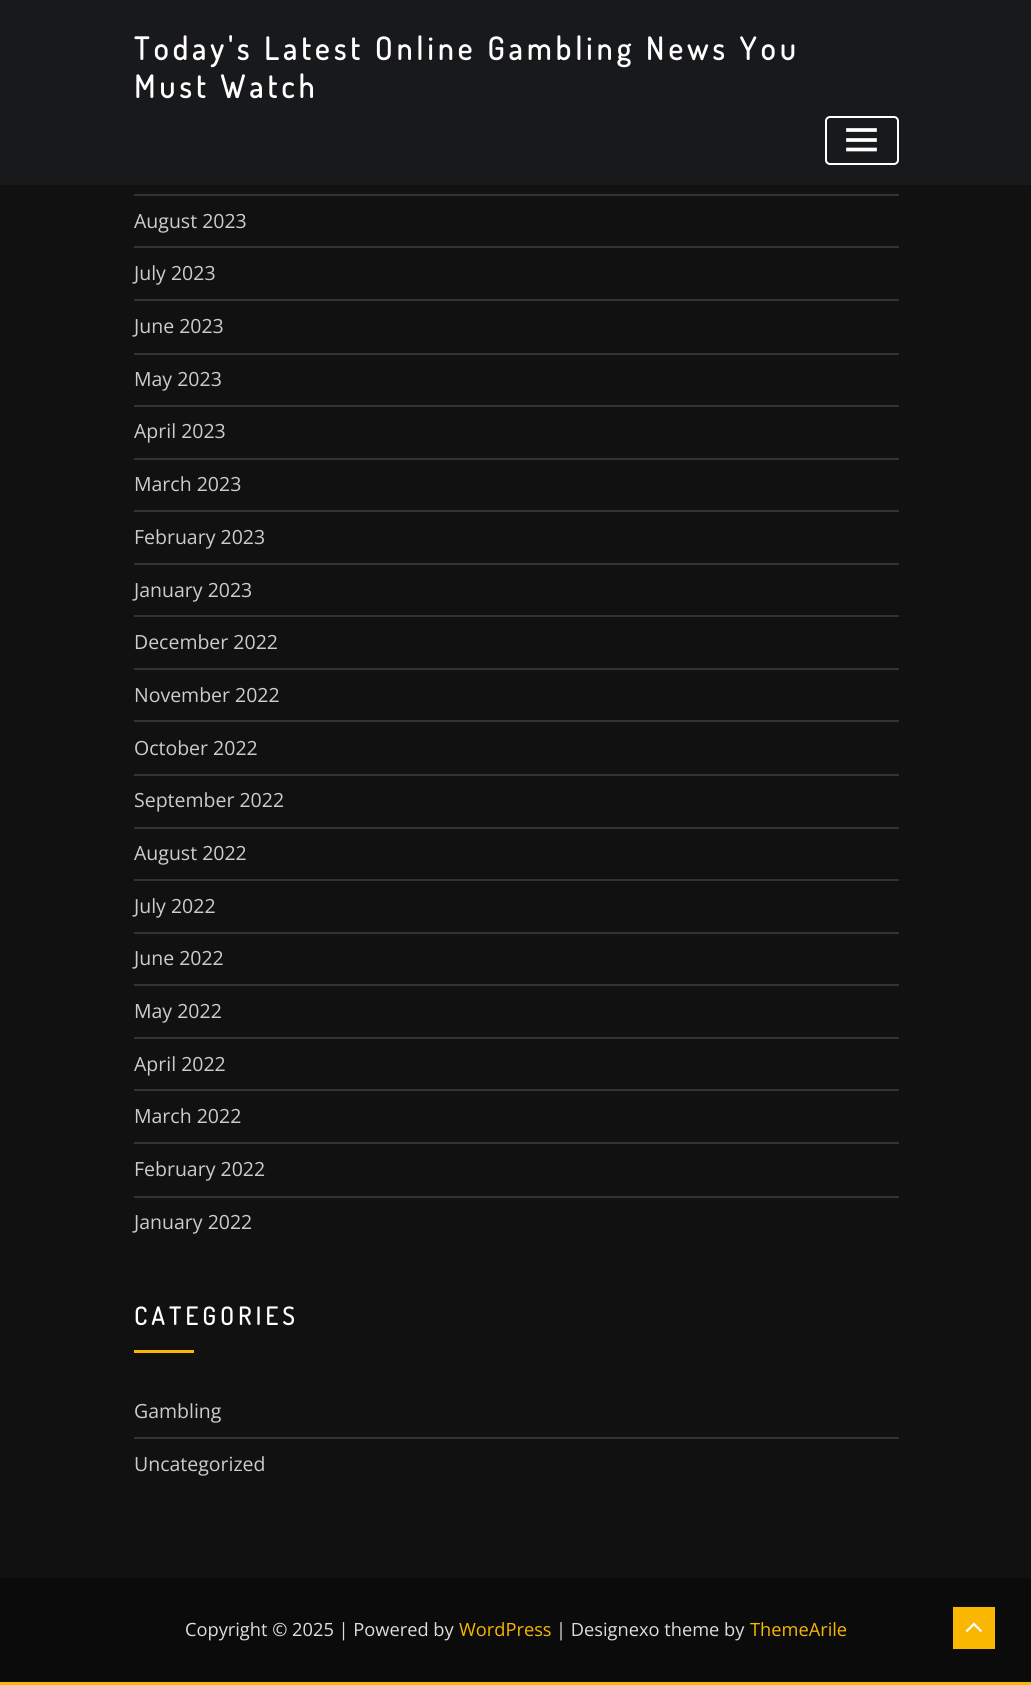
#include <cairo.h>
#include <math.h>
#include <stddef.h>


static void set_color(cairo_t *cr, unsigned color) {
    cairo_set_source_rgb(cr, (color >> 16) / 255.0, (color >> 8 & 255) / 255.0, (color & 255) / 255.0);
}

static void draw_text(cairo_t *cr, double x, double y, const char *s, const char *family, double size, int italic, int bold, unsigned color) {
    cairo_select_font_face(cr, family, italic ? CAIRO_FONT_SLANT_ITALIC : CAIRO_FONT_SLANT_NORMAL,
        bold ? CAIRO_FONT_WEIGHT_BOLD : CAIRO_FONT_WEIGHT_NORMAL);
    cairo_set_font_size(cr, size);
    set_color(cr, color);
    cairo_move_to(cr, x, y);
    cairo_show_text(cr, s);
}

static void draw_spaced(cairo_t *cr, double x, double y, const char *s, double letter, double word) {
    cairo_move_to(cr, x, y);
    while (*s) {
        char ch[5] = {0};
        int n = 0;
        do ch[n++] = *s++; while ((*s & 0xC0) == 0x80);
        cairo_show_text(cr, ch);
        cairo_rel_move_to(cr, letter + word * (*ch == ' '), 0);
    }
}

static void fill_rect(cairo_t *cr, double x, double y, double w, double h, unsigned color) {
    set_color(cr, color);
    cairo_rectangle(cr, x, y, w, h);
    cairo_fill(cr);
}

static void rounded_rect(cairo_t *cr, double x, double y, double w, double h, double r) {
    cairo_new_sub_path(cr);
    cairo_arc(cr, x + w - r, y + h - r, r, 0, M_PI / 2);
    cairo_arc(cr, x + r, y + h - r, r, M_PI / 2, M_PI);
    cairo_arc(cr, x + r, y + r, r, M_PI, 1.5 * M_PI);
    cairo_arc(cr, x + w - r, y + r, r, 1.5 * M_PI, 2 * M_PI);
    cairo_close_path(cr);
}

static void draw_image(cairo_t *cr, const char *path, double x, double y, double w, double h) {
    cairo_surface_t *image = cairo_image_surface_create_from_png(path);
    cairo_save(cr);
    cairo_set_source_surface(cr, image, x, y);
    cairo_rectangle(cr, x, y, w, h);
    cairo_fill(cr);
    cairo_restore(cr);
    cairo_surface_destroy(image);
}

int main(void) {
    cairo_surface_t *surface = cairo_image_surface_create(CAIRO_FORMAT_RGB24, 1031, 1685);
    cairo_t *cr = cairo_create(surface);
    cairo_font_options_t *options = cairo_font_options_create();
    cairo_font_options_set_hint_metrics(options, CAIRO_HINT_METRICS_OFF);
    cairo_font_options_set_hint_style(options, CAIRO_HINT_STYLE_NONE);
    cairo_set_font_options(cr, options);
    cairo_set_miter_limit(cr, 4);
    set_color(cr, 0x111111);
    cairo_paint(cr);
    fill_rect(cr, 0, 0, 1031, 185, 0x18191B);
    cairo_select_font_face(cr, "Dosis", CAIRO_FONT_SLANT_NORMAL, CAIRO_FONT_WEIGHT_BOLD);
    cairo_set_font_size(cr, 31.2);
    set_color(cr, 0xFFFFFF);
    draw_spaced(cr, 134, 60, "Today's Latest Online Gambling News You", 4.5, 0);
    draw_spaced(cr, 134, 98, "Must Watch", 4.5, 0);
    rounded_rect(cr, 826, 117, 72, 47, 4);
    cairo_stroke(cr);
    cairo_new_path(cr);
    cairo_move_to(cr, 848, 130);
    cairo_line_to(cr, 875, 130);
    cairo_move_to(cr, 848, 140);
    cairo_line_to(cr, 875, 140);
    cairo_move_to(cr, 848, 149.5);
    cairo_line_to(cr, 875, 149.5);
    cairo_set_line_width(cr, 3.7);
    cairo_set_line_cap(cr, CAIRO_LINE_CAP_SQUARE);
    cairo_stroke(cr);
    fill_rect(cr, 0, 1682, 1031, 3, 0xFAB702);
    fill_rect(cr, 134, 194, 765, 2, 0x333333);
    fill_rect(cr, 134, 246, 765, 2, 0x333333);
    draw_text(cr, 134, 228, "August 2023", "Open Sans", 19.5, 0, 0, 0xCCCCCC);
    fill_rect(cr, 134, 299, 765, 2, 0x333333);
    draw_text(cr, 134, 280, "July 2023", "Open Sans", 19.5, 0, 0, 0xCCCCCC);
    fill_rect(cr, 134, 353, 765, 2, 0x333333);
    draw_text(cr, 134, 333, "June 2023", "Open Sans", 19.5, 0, 0, 0xCCCCCC);
    fill_rect(cr, 134, 405, 765, 2, 0x333333);
    draw_text(cr, 134, 386, "May 2023", "Open Sans", 19.5, 0, 0, 0xCCCCCC);
    fill_rect(cr, 134, 458, 765, 2, 0x333333);
    draw_text(cr, 134, 438, "April 2023", "Open Sans", 19.5, 0, 0, 0xCCCCCC);
    fill_rect(cr, 134, 510, 765, 2, 0x333333);
    draw_text(cr, 134, 491, "March 2023", "Open Sans", 19.5, 0, 0, 0xCCCCCC);
    fill_rect(cr, 134, 563, 765, 2, 0x333333);
    draw_text(cr, 134, 544, "February 2023", "Open Sans", 19.5, 0, 0, 0xCCCCCC);
    fill_rect(cr, 134, 615, 765, 2, 0x333333);
    draw_text(cr, 134, 597, "January 2023", "Open Sans", 19.5, 0, 0, 0xCCCCCC);
    fill_rect(cr, 134, 668, 765, 2, 0x333333);
    draw_text(cr, 134, 649, "December 2022", "Open Sans", 19.5, 0, 0, 0xCCCCCC);
    fill_rect(cr, 134, 720, 765, 2, 0x333333);
    draw_text(cr, 134, 702, "November 2022", "Open Sans", 19.5, 0, 0, 0xCCCCCC);
    fill_rect(cr, 134, 774, 765, 2, 0x333333);
    draw_text(cr, 134, 755, "October 2022", "Open Sans", 19.5, 0, 0, 0xCCCCCC);
    fill_rect(cr, 134, 827, 765, 2, 0x333333);
    draw_text(cr, 134, 807, "September 2022", "Open Sans", 19.5, 0, 0, 0xCCCCCC);
    fill_rect(cr, 134, 879, 765, 2, 0x333333);
    draw_text(cr, 134, 860, "August 2022", "Open Sans", 19.5, 0, 0, 0xCCCCCC);
    fill_rect(cr, 134, 932, 765, 2, 0x333333);
    draw_text(cr, 134, 913, "July 2022", "Open Sans", 19.5, 0, 0, 0xCCCCCC);
    fill_rect(cr, 134, 984, 765, 2, 0x333333);
    draw_text(cr, 134, 965, "June 2022", "Open Sans", 19.5, 0, 0, 0xCCCCCC);
    fill_rect(cr, 134, 1037, 765, 2, 0x333333);
    draw_text(cr, 134, 1018, "May 2022", "Open Sans", 19.5, 0, 0, 0xCCCCCC);
    fill_rect(cr, 134, 1089, 765, 2, 0x333333);
    draw_text(cr, 134, 1071, "April 2022", "Open Sans", 19.5, 0, 0, 0xCCCCCC);
    fill_rect(cr, 134, 1142, 765, 2, 0x333333);
    draw_text(cr, 134, 1123, "March 2022", "Open Sans", 19.5, 0, 0, 0xCCCCCC);
    fill_rect(cr, 134, 1196, 765, 2, 0x333333);
    draw_text(cr, 134, 1176, "February 2022", "Open Sans", 19.5, 0, 0, 0xCCCCCC);
    draw_text(cr, 134, 1229, "January 2022", "Open Sans", 19.5, 0, 0, 0xCCCCCC);
    cairo_select_font_face(cr, "Dosis", CAIRO_FONT_SLANT_NORMAL, CAIRO_FONT_WEIGHT_BOLD);
    cairo_set_font_size(cr, 24.5);
    set_color(cr, 0xFFFFFF);
    draw_spaced(cr, 134, 1325, "CATEGORIES", 4.5, 0);
    fill_rect(cr, 134, 1350, 60, 3, 0xFAB702);
    fill_rect(cr, 134, 1437, 765, 2, 0x333333);
    draw_text(cr, 134, 1418, "Gambling", "Open Sans", 19.5, 0, 0, 0xCCCCCC);
    draw_text(cr, 134, 1471, "Uncategorized", "Open Sans", 19.5, 0, 0, 0xCCCCCC);
    fill_rect(cr, 0, 1578, 1031, 104, 0x0B0B0B);
    draw_text(cr, 185, 1636, "Copyright © 2025 | Powered by", "Open Sans", 18.25, 0, 0, 0xDDDDDD);
    draw_text(cr, 459, 1636, "WordPress", "Open Sans", 18.25, 0, 0, 0xFAB702);
    draw_text(cr, 556, 1636, "| Designexo theme by", "Open Sans", 18.25, 0, 0, 0xDDDDDD);
    draw_text(cr, 750, 1636, "ThemeArile", "Open Sans", 18.25, 0, 0, 0xFAB702);
    fill_rect(cr, 953, 1607, 42, 42, 0xFAB702);
    draw_image(cr, "assets/img1.png", 965, 1622, 17, 11);
    cairo_surface_write_to_png(surface, "output.png");
    cairo_font_options_destroy(options);
    cairo_destroy(cr);
    cairo_surface_destroy(surface);
    return 0;
}
